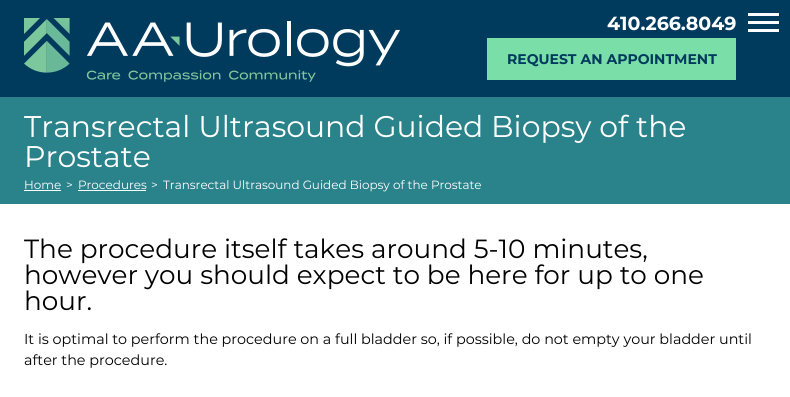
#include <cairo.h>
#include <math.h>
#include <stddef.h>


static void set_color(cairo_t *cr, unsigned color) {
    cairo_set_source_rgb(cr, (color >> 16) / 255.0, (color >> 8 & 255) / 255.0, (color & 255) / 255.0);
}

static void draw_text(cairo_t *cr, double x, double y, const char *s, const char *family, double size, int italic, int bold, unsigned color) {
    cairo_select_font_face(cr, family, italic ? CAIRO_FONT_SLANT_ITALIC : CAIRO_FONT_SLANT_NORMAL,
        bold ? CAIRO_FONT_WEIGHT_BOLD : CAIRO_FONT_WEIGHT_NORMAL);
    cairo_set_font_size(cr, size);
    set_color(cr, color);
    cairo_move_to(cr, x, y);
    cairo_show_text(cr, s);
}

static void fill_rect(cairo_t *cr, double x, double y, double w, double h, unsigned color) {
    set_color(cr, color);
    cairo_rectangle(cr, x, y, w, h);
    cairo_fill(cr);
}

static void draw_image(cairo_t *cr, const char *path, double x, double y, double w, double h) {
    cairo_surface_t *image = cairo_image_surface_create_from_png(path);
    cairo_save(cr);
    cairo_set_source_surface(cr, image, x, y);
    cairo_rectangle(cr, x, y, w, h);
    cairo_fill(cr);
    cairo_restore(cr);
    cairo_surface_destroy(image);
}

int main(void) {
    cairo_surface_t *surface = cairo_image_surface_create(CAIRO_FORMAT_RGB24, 790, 397);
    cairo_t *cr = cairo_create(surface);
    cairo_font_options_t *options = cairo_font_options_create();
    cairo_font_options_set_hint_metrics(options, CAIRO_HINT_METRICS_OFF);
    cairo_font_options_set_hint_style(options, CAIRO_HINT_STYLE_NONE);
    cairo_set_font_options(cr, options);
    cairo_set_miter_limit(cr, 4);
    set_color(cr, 0x003A5D);
    cairo_paint(cr);
    draw_image(cr, "assets/img1.png", 24, 18, 376, 64);
    draw_text(cr, 607, 30, "410.266.8049", "Montserrat", 19, 0, 1, 0xFFFFFF);
    fill_rect(cr, 487, 38, 249, 42, 0x79DEA8);
    draw_text(cr, 507, 64, "REQUEST AN APPOINTMENT", "Montserrat", 14, 0, 1, 0x003A5D);
    fill_rect(cr, 0, 97, 790, 107, 0x2A828B);
    draw_text(cr, 24, 137, "Transrectal Ultrasound Guided Biopsy of the", "Montserrat", 29.9, 0, 0, 0xFFFFFF);
    draw_text(cr, 24, 167, "Prostate", "Montserrat", 29.9, 0, 0, 0xFFFFFF);
    draw_text(cr, 24, 189, "Home", "Montserrat", 11.95, 0, 0, 0xFFFFFF);
    fill_rect(cr, 24, 190, 37, 1, 0xFFFFFF);
    draw_text(cr, 66, 189, ">", "Montserrat", 11.95, 0, 0, 0xFFFFFF);
    draw_text(cr, 78, 189, "Procedures", "Montserrat", 11.95, 0, 0, 0xFFFFFF);
    fill_rect(cr, 78, 190, 68, 1, 0xFFFFFF);
    draw_text(cr, 151, 189, ">", "Montserrat", 11.95, 0, 0, 0xFFFFFF);
    draw_text(cr, 163, 189, "Transrectal Ultrasound Guided Biopsy of the Prostate", "Montserrat", 11.95, 0, 0, 0xFFFFFF);
    fill_rect(cr, 0, 204, 790, 193, 0xFFFFFF);
    draw_text(cr, 24, 258, "The procedure itself takes around 5-10 minutes,", "Montserrat", 26.3, 0, 0, 0x000000);
    draw_text(cr, 24, 284, "however you should expect to be here for up to one", "Montserrat", 26.3, 0, 0, 0x000000);
    draw_text(cr, 24, 310, "hour.", "Montserrat", 26.3, 0, 0, 0x000000);
    draw_text(cr, 24, 344, "It is optimal to perform the procedure on a full bladder so, if possible, do not empty your bladder until", "Montserrat", 14.35, 0, 0, 0x000000);
    draw_text(cr, 24, 365, "after the procedure.", "Montserrat", 14.35, 0, 0, 0x000000);
    fill_rect(cr, 748, 21, 31, 3, 0xFFFFFF);
    fill_rect(cr, 748, 13, 31, 3, 0xFFFFFF);
    fill_rect(cr, 748, 29, 31, 3, 0xFFFFFF);
    cairo_surface_write_to_png(surface, "output.png");
    cairo_font_options_destroy(options);
    cairo_destroy(cr);
    cairo_surface_destroy(surface);
    return 0;
}
